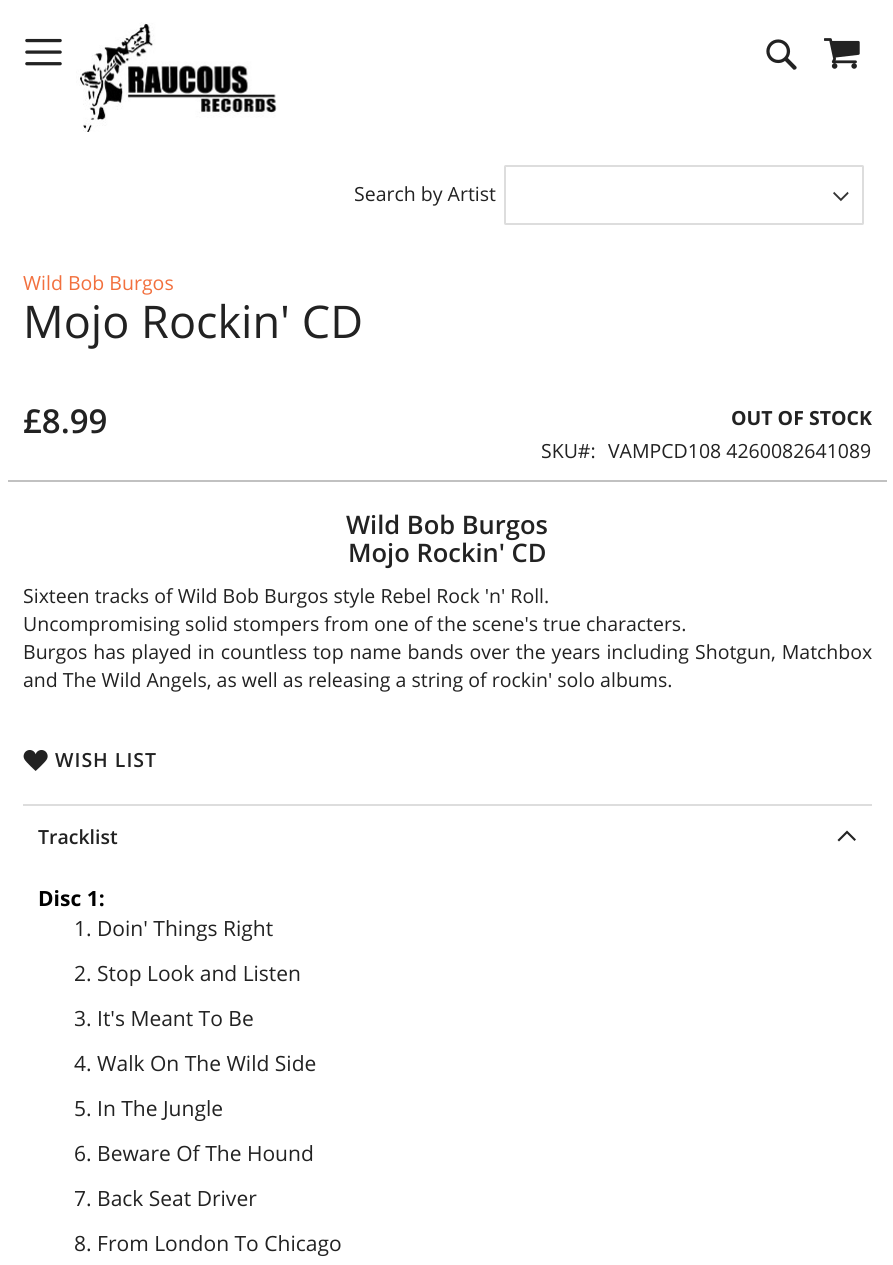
#include <cairo.h>
#include <math.h>
#include <stddef.h>


static void set_color(cairo_t *cr, unsigned color) {
    cairo_set_source_rgb(cr, (color >> 16) / 255.0, (color >> 8 & 255) / 255.0, (color & 255) / 255.0);
}

static void draw_text(cairo_t *cr, double x, double y, const char *s, const char *family, double size, int italic, int bold, unsigned color) {
    cairo_select_font_face(cr, family, italic ? CAIRO_FONT_SLANT_ITALIC : CAIRO_FONT_SLANT_NORMAL,
        bold ? CAIRO_FONT_WEIGHT_BOLD : CAIRO_FONT_WEIGHT_NORMAL);
    cairo_set_font_size(cr, size);
    set_color(cr, color);
    cairo_move_to(cr, x, y);
    cairo_show_text(cr, s);
}

static void draw_spaced(cairo_t *cr, double x, double y, const char *s, double letter, double word) {
    cairo_move_to(cr, x, y);
    while (*s) {
        char ch[5] = {0};
        int n = 0;
        do ch[n++] = *s++; while ((*s & 0xC0) == 0x80);
        cairo_show_text(cr, ch);
        cairo_rel_move_to(cr, letter + word * (*ch == ' '), 0);
    }
}

static void fill_rect(cairo_t *cr, double x, double y, double w, double h, unsigned color) {
    set_color(cr, color);
    cairo_rectangle(cr, x, y, w, h);
    cairo_fill(cr);
}

static void rounded_rect(cairo_t *cr, double x, double y, double w, double h, double r) {
    cairo_new_sub_path(cr);
    cairo_arc(cr, x + w - r, y + h - r, r, 0, M_PI / 2);
    cairo_arc(cr, x + r, y + h - r, r, M_PI / 2, M_PI);
    cairo_arc(cr, x + r, y + r, r, M_PI, 1.5 * M_PI);
    cairo_arc(cr, x + w - r, y + r, r, 1.5 * M_PI, 2 * M_PI);
    cairo_close_path(cr);
}

static void draw_image(cairo_t *cr, const char *path, double x, double y, double w, double h) {
    cairo_surface_t *image = cairo_image_surface_create_from_png(path);
    cairo_save(cr);
    cairo_set_source_surface(cr, image, x, y);
    cairo_rectangle(cr, x, y, w, h);
    cairo_fill(cr);
    cairo_restore(cr);
    cairo_surface_destroy(image);
}

int main(void) {
    cairo_surface_t *surface = cairo_image_surface_create(CAIRO_FORMAT_RGB24, 893, 1265);
    cairo_t *cr = cairo_create(surface);
    cairo_font_options_t *options = cairo_font_options_create();
    cairo_font_options_set_hint_metrics(options, CAIRO_HINT_METRICS_OFF);
    cairo_font_options_set_hint_style(options, CAIRO_HINT_STYLE_NONE);
    cairo_set_font_options(cr, options);
    cairo_set_miter_limit(cr, 4);
    set_color(cr, 0xFFFFFF);
    cairo_paint(cr);
    draw_image(cr, "assets/img1.png", 25, 38, 37, 28);
    draw_image(cr, "assets/img2.png", 76, 22, 201, 110);
    draw_image(cr, "assets/img3.png", 766, 39, 31, 31);
    draw_image(cr, "assets/img4.png", 824, 38, 36, 31);
    draw_text(cr, 354, 201, "Search by Artist", "Open Sans", 19.5, 0, 0, 0x222222);
    draw_image(cr, "assets/img5.png", 833, 191, 16, 11);
    rounded_rect(cr, 505, 166, 358, 58, 0.5);
    set_color(cr, 0xDDDDDD);
    cairo_stroke(cr);
    draw_text(cr, 23, 290, "Wild Bob Burgos", "Open Sans", 19.5, 0, 0, 0xF2703E);
    draw_text(cr, 23, 338, "Mojo Rockin' CD", "Open Sans", 45, 0, 0, 0x222222);
    fill_rect(cr, 8, 480, 879, 2, 0xC1C1C1);
    draw_text(cr, 23, 433, "£8.99", "Open Sans SemiBold", 33, 0, 0, 0x222222);
    draw_text(cr, 731, 425, "OUT OF STOCK", "Open Sans", 19.5, 0, 1, 0x222222);
    draw_text(cr, 541, 458, "SKU#:", "Open Sans", 19.5, 0, 0, 0x222222);
    draw_text(cr, 608, 458, "VAMPCD108 4260082641089", "Open Sans", 19.5, 0, 0, 0x222222);
    draw_text(cr, 346, 534, "Wild Bob Burgos", "Open Sans SemiBold", 25.5, 0, 0, 0x222222);
    draw_text(cr, 348, 562, "Mojo Rockin' CD", "Open Sans SemiBold", 25.5, 0, 0, 0x222222);
    draw_text(cr, 23, 603, "Sixteen tracks of Wild Bob Burgos style Rebel Rock 'n' Roll.", "Open Sans", 19.5, 0, 0, 0x222222);
    draw_text(cr, 23, 631, "Uncompromising solid stompers from one of the scene's true characters.", "Open Sans", 19.5, 0, 0, 0x222222);
    draw_spaced(cr, 23, 659, "Burgos has played in countless top name bands over the years including Shotgun, Matchbox", 0, 0.9);
    draw_text(cr, 23, 687, "and The Wild Angels, as well as releasing a string of rockin' solo albums.", "Open Sans", 19.5, 0, 0, 0x222222);
    draw_image(cr, "assets/img6.png", 23, 750, 25, 21);
    cairo_select_font_face(cr, "Open Sans SemiBold", CAIRO_FONT_SLANT_NORMAL, CAIRO_FONT_WEIGHT_NORMAL);
    draw_spaced(cr, 55, 767, "WISH LIST", 1, 0);
    fill_rect(cr, 23, 804, 849, 2, 0xDDDDDD);
    draw_text(cr, 38, 844, "Tracklist", "Open Sans SemiBold", 19.5, 0, 0, 0x222222);
    cairo_new_path(cr);
    cairo_move_to(cr, 847, 833.5);
    cairo_line_to(cr, 854.5, 841);
    cairo_line_to(cr, 856, 839.5);
    cairo_line_to(cr, 847, 830.5);
    cairo_line_to(cr, 837.5, 840);
    cairo_line_to(cr, 839, 841.5);
    cairo_close_path(cr);
    cairo_fill(cr);
    draw_text(cr, 38, 906, "Disc 1:", "Open Sans", 21, 0, 1, 0x000000);
    draw_text(cr, 74, 936, "1. Doin' Things Right", "Open Sans", 21, 0, 0, 0x222222);
    draw_text(cr, 74, 981, "2. Stop Look and Listen", "Open Sans", 21, 0, 0, 0x222222);
    draw_text(cr, 74, 1026, "3. It's Meant To Be", "Open Sans", 21, 0, 0, 0x222222);
    draw_text(cr, 74, 1071, "4. Walk On The Wild Side", "Open Sans", 21, 0, 0, 0x222222);
    draw_text(cr, 74, 1116, "5. In The Jungle", "Open Sans", 21, 0, 0, 0x222222);
    draw_text(cr, 74, 1161, "6. Beware Of The Hound", "Open Sans", 21, 0, 0, 0x222222);
    draw_text(cr, 74, 1206, "7. Back Seat Driver", "Open Sans", 21, 0, 0, 0x222222);
    draw_text(cr, 74, 1251, "8. From London To Chicago", "Open Sans", 21, 0, 0, 0x222222);
    cairo_surface_write_to_png(surface, "output.png");
    cairo_font_options_destroy(options);
    cairo_destroy(cr);
    cairo_surface_destroy(surface);
    return 0;
}
